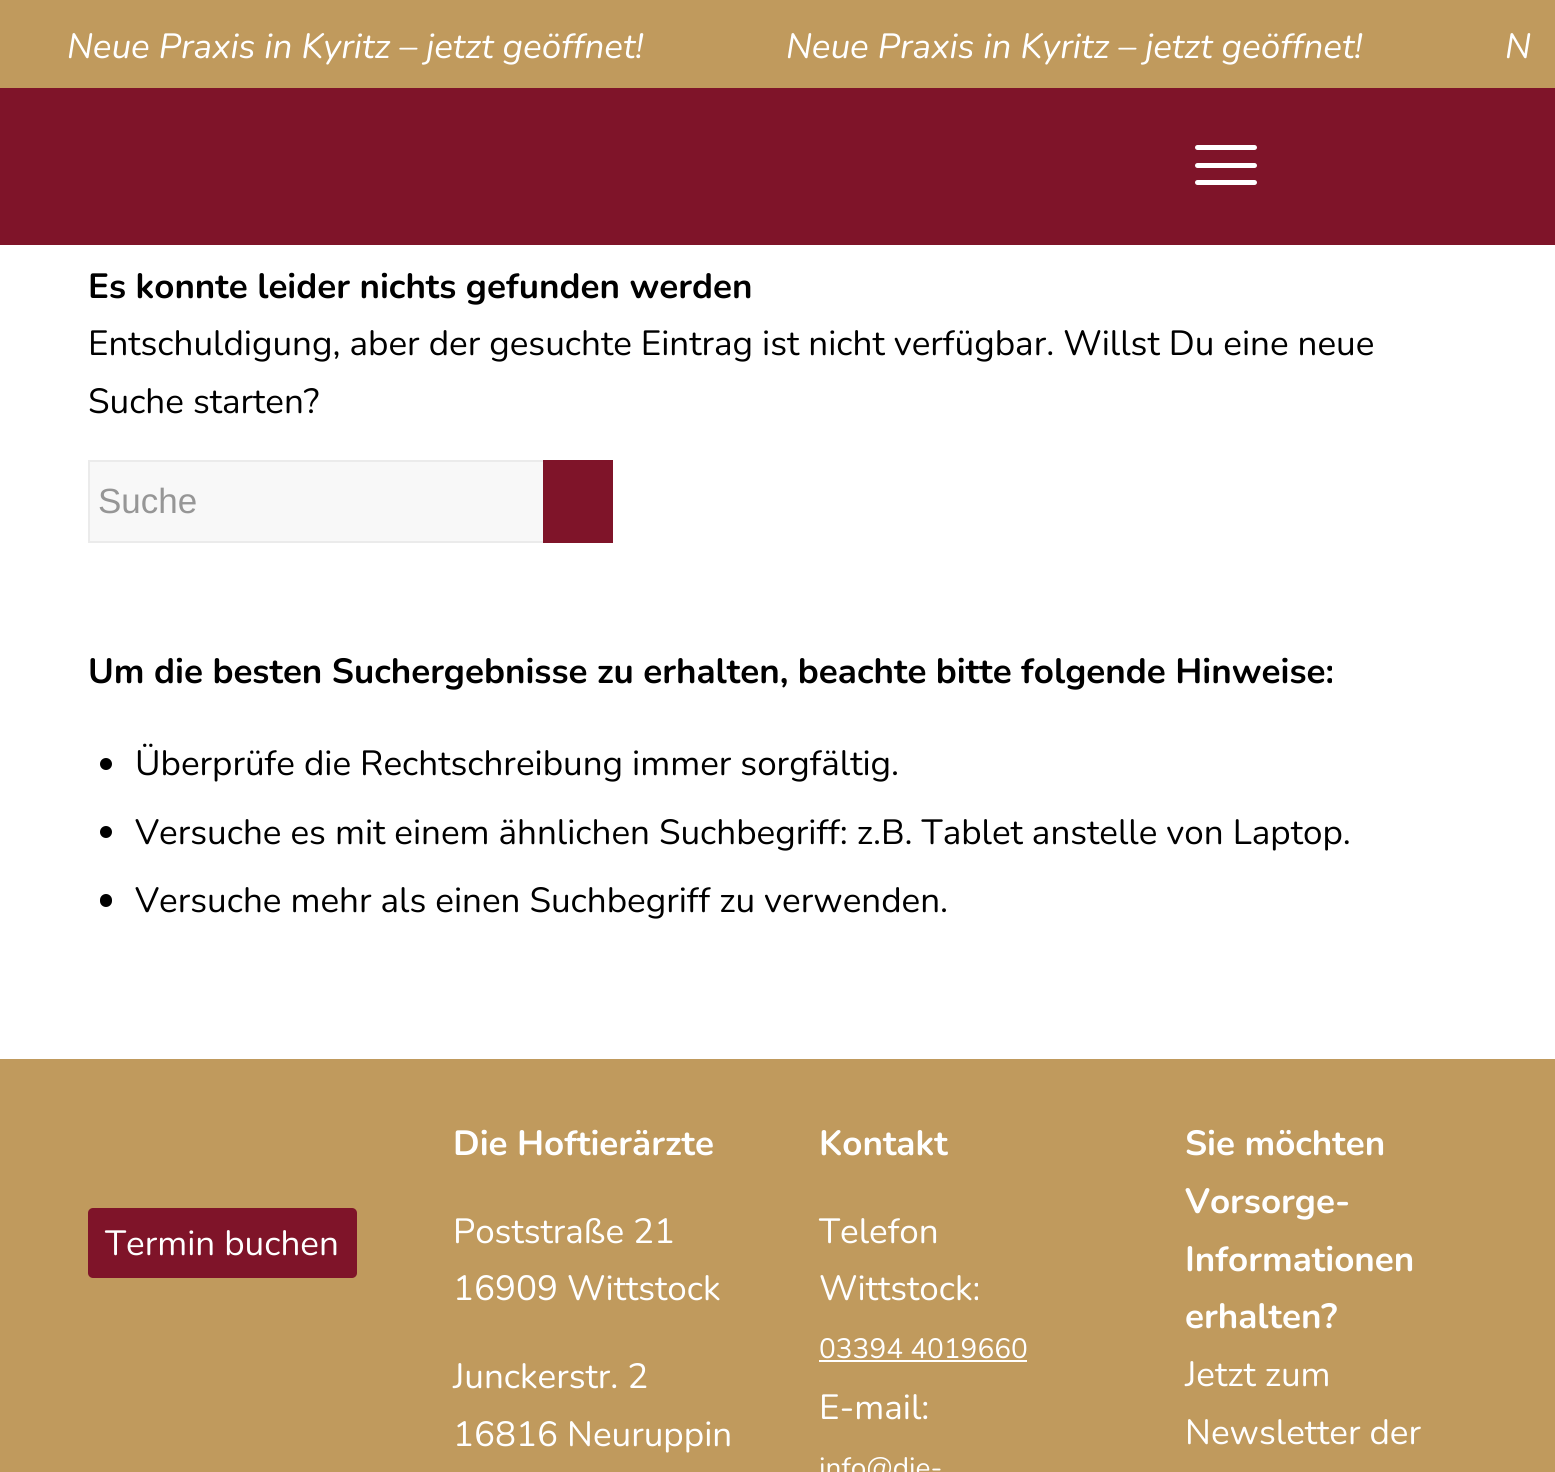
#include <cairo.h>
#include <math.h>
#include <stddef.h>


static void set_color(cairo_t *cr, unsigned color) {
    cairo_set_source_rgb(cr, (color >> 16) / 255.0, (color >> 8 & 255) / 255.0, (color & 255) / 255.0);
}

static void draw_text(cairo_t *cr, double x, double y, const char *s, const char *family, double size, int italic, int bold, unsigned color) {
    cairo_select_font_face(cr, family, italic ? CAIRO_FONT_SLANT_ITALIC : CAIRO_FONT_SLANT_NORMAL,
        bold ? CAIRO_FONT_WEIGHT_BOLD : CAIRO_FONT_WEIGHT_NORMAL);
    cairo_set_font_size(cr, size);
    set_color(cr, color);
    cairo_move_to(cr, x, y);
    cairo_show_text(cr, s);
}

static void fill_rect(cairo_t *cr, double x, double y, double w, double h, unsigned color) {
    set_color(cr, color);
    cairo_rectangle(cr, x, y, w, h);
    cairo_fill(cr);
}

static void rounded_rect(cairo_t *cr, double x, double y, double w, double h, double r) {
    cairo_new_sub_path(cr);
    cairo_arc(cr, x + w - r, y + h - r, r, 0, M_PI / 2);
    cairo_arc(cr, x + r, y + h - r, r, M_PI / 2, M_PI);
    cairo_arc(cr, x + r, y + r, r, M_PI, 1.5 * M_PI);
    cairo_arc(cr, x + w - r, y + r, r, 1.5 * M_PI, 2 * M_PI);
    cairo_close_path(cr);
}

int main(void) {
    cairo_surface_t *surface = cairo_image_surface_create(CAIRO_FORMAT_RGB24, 1555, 1472);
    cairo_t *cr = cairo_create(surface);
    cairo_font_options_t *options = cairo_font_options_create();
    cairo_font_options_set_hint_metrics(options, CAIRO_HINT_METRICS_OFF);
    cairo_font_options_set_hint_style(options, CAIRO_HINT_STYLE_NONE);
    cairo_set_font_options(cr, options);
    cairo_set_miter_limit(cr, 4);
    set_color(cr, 0xFFFFFF);
    cairo_paint(cr);
    fill_rect(cr, 0, 0, 1555, 88, 0xC09A5D);
    draw_text(cr, 67, 58, "Neue Praxis in Kyritz – jetzt geöffnet!", "Nunito", 35, 1, 0, 0xFFFFFF);
    draw_text(cr, 786, 58, "Neue Praxis in Kyritz – jetzt geöffnet!", "Nunito", 35, 1, 0, 0xFFFFFF);
    draw_text(cr, 1505, 58, "N", "Nunito", 35, 1, 0, 0xFFFFFF);
    fill_rect(cr, 0, 88, 1555, 157, 0x7F1429);
    set_color(cr, 0xFFFFFF);
    rounded_rect(cr, 1195, 163, 62, 5, 2.5);
    cairo_fill(cr);
    rounded_rect(cr, 1195, 145, 62, 5, 2.5);
    cairo_fill(cr);
    rounded_rect(cr, 1195, 180, 62, 5, 2.5);
    cairo_fill(cr);
    draw_text(cr, 88, 298, "Es konnte leider nichts gefunden werden", "Nunito", 35, 0, 1, 0x000000);
    draw_text(cr, 88, 355, "Entschuldigung, aber der gesuchte Eintrag ist nicht verfügbar. Willst Du eine neue", "Nunito", 35, 0, 0, 0x000000);
    draw_text(cr, 88, 413, "Suche starten?", "Nunito", 35, 0, 0, 0x000000);
    fill_rect(cr, 90, 462, 453, 79, 0xF8F8F8);
    cairo_rectangle(cr, 89, 461, 523, 81);
    set_color(cr, 0xEBEBEB);
    cairo_stroke(cr);
    draw_text(cr, 98, 513, "Suche", "Liberation Sans", 35, 0, 0, 0x969696);
    fill_rect(cr, 543, 460, 70, 83, 0x7F1429);
    draw_text(cr, 88, 683, "Um die besten Suchergebnisse zu erhalten, beachte bitte folgende Hinweise:", "Nunito", 35, 0, 1, 0x000000);
    cairo_new_path(cr);
    cairo_arc(cr, 106, 764, 6, 0, 2 * M_PI);
    cairo_fill(cr);
    draw_text(cr, 135, 775, "Überprüfe die Rechtschreibung immer sorgfältig.", "Nunito", 35, 0, 0, 0x000000);
    cairo_new_path(cr);
    cairo_arc(cr, 106, 832, 6, 0, 2 * M_PI);
    cairo_fill(cr);
    draw_text(cr, 135, 844, "Versuche es mit einem ähnlichen Suchbegriff: z.B. Tablet anstelle von Laptop.", "Nunito", 35, 0, 0, 0x000000);
    rounded_rect(cr, 100, 894, 12, 13, 6);
    cairo_fill(cr);
    draw_text(cr, 135, 912, "Versuche mehr als einen Suchbegriff zu verwenden.", "Nunito", 35, 0, 0, 0x000000);
    fill_rect(cr, 0, 1059, 1555, 413, 0xC09A5D);
    set_color(cr, 0x7F1429);
    rounded_rect(cr, 88, 1208, 269, 70, 5);
    cairo_fill(cr);
    draw_text(cr, 105, 1255, "Termin buchen", "Nunito", 35, 0, 0, 0xFFFFFF);
    draw_text(cr, 453, 1155, "Die Hoftierärzte", "Nunito", 35, 0, 1, 0xFFFFFF);
    draw_text(cr, 453, 1243, "Poststraße 21", "Nunito", 35, 0, 0, 0xFFFFFF);
    draw_text(cr, 453, 1300, "16909 Wittstock", "Nunito", 35, 0, 0, 0xFFFFFF);
    draw_text(cr, 453, 1388, "Junckerstr. 2", "Nunito", 35, 0, 0, 0xFFFFFF);
    draw_text(cr, 453, 1446, "16816 Neuruppin", "Nunito", 35, 0, 0, 0xFFFFFF);
    draw_text(cr, 819, 1155, "Kontakt", "Nunito", 35, 0, 1, 0xFFFFFF);
    draw_text(cr, 819, 1243, "Telefon", "Nunito", 35, 0, 0, 0xFFFFFF);
    draw_text(cr, 819, 1300, "Wittstock:", "Nunito", 35, 0, 0, 0xFFFFFF);
    draw_text(cr, 819, 1358, "03394 4019660", "Nunito", 28, 0, 0, 0xFFFFFF);
    fill_rect(cr, 819, 1360, 208, 2, 0xFFFFFF);
    draw_text(cr, 819, 1419, "E-mail:", "Nunito", 35, 0, 0, 0xFFFFFF);
    draw_text(cr, 819, 1477, "info@die-", "Nunito", 28, 0, 0, 0xFFFFFF);
    draw_text(cr, 1185, 1155, "Sie möchten", "Nunito", 35, 0, 1, 0xFFFFFF);
    draw_text(cr, 1185, 1213, "Vorsorge-", "Nunito", 35, 0, 1, 0xFFFFFF);
    draw_text(cr, 1185, 1271, "Informationen", "Nunito", 35, 0, 1, 0xFFFFFF);
    draw_text(cr, 1185, 1328, "erhalten?", "Nunito", 35, 0, 1, 0xFFFFFF);
    draw_text(cr, 1185, 1386, "Jetzt zum", "Nunito", 35, 0, 0, 0xFFFFFF);
    draw_text(cr, 1185, 1444, "Newsletter der", "Nunito", 35, 0, 0, 0xFFFFFF);
    cairo_surface_write_to_png(surface, "output.png");
    cairo_font_options_destroy(options);
    cairo_destroy(cr);
    cairo_surface_destroy(surface);
    return 0;
}
